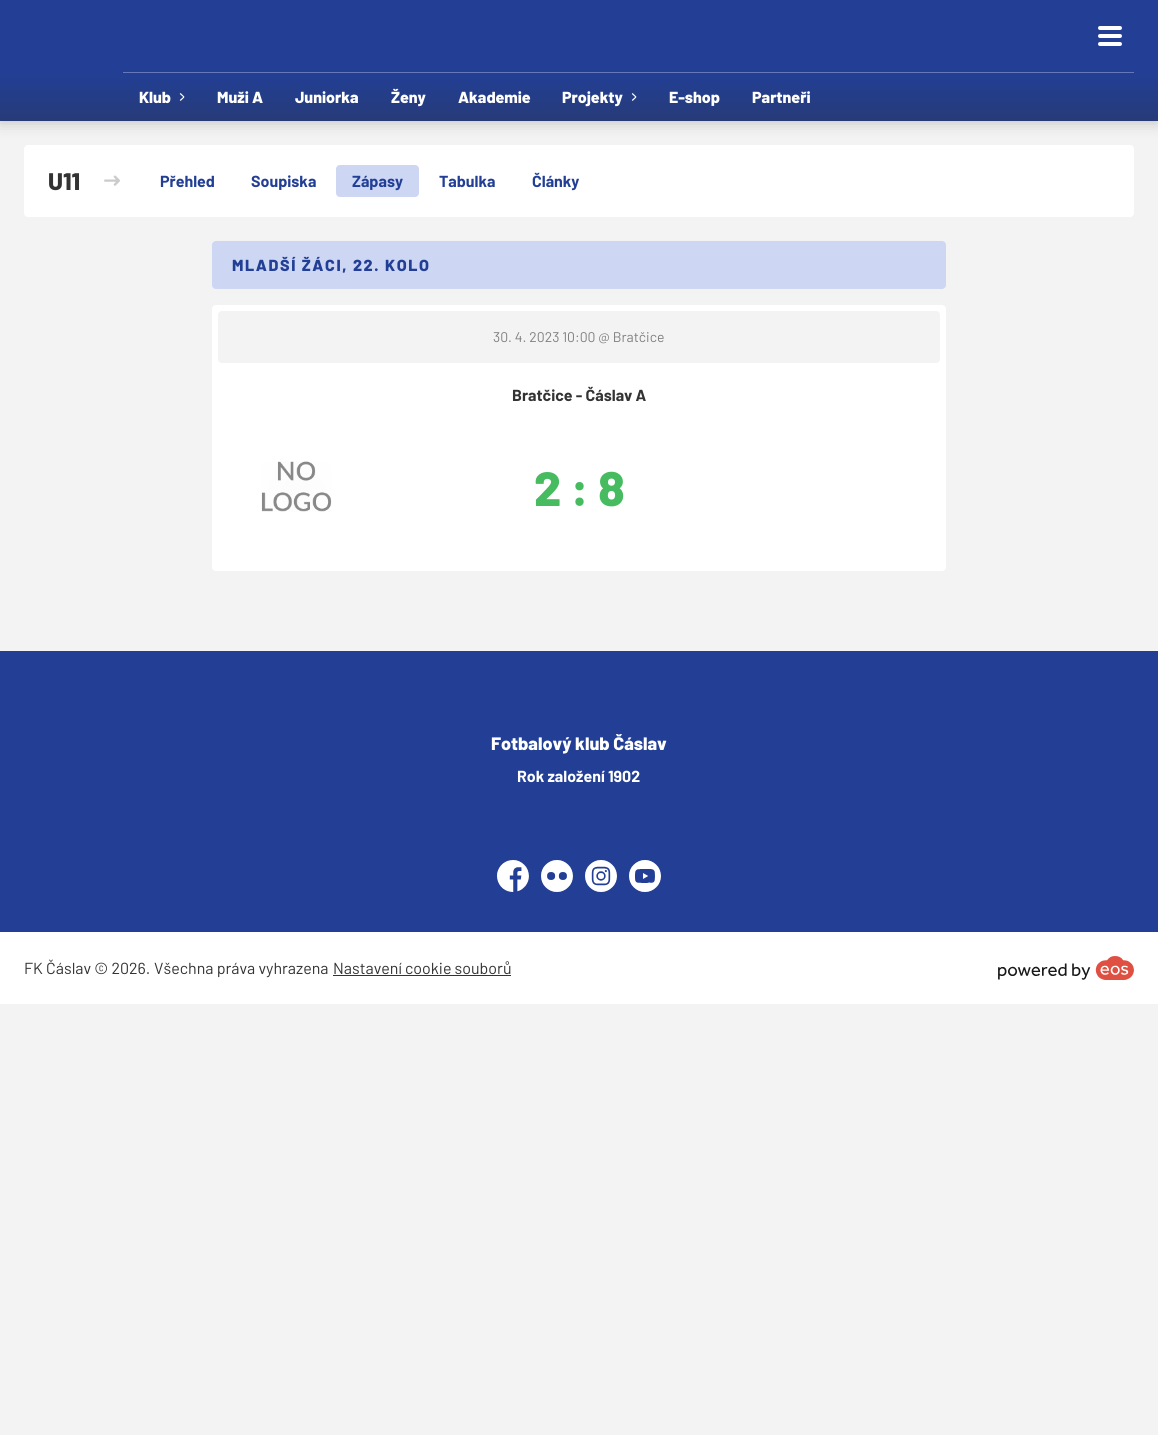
#include <cairo.h>
#include <math.h>
#include <stddef.h>


static void set_color(cairo_t *cr, unsigned color) {
    cairo_set_source_rgb(cr, (color >> 16) / 255.0, (color >> 8 & 255) / 255.0, (color & 255) / 255.0);
}

static void draw_text(cairo_t *cr, double x, double y, const char *s, const char *family, double size, int italic, int bold, unsigned color) {
    cairo_select_font_face(cr, family, italic ? CAIRO_FONT_SLANT_ITALIC : CAIRO_FONT_SLANT_NORMAL,
        bold ? CAIRO_FONT_WEIGHT_BOLD : CAIRO_FONT_WEIGHT_NORMAL);
    cairo_set_font_size(cr, size);
    set_color(cr, color);
    cairo_move_to(cr, x, y);
    cairo_show_text(cr, s);
}

static void draw_spaced(cairo_t *cr, double x, double y, const char *s, double letter, double word) {
    cairo_move_to(cr, x, y);
    while (*s) {
        char ch[5] = {0};
        int n = 0;
        do ch[n++] = *s++; while ((*s & 0xC0) == 0x80);
        cairo_show_text(cr, ch);
        cairo_rel_move_to(cr, letter + word * (*ch == ' '), 0);
    }
}

static void fill_rect(cairo_t *cr, double x, double y, double w, double h, unsigned color) {
    set_color(cr, color);
    cairo_rectangle(cr, x, y, w, h);
    cairo_fill(cr);
}

static void rounded_rect(cairo_t *cr, double x, double y, double w, double h, double r) {
    cairo_new_sub_path(cr);
    cairo_arc(cr, x + w - r, y + h - r, r, 0, M_PI / 2);
    cairo_arc(cr, x + r, y + h - r, r, M_PI / 2, M_PI);
    cairo_arc(cr, x + r, y + r, r, M_PI, 1.5 * M_PI);
    cairo_arc(cr, x + w - r, y + r, r, 1.5 * M_PI, 2 * M_PI);
    cairo_close_path(cr);
}

static void draw_shadow(cairo_t *cr, double x, double y, double w, double h, double r, double blur, double alpha) {
    cairo_push_group_with_content(cr, CAIRO_CONTENT_ALPHA);
    cairo_set_operator(cr, CAIRO_OPERATOR_SOURCE);
    for (int i = 15; i >= -15 && fmin(w, h) + blur * i / 3 > 0; i -= 2) {
        double e = blur * i / 6;
        cairo_set_source_rgba(cr, 0, 0, 0, alpha * erfc((i - 1) / 8.5) / 2);
        rounded_rect(cr, x - e, y - e, w + 2 * e, h + 2 * e, fmax(0, fmin(r + e + blur * .6, fmin(w, h) / 2 + e)));
        cairo_fill(cr);
    }
    cairo_pattern_t *soft = cairo_pop_group(cr);
    cairo_mask(cr, soft);
    cairo_pattern_destroy(soft);
}

static void draw_image(cairo_t *cr, const char *path, double x, double y, double w, double h) {
    cairo_surface_t *image = cairo_image_surface_create_from_png(path);
    cairo_save(cr);
    cairo_set_source_surface(cr, image, x, y);
    cairo_rectangle(cr, x, y, w, h);
    cairo_fill(cr);
    cairo_restore(cr);
    cairo_surface_destroy(image);
}

int main(void) {
    cairo_surface_t *surface = cairo_image_surface_create(CAIRO_FORMAT_RGB24, 1158, 1435);
    cairo_t *cr = cairo_create(surface);
    cairo_font_options_t *options = cairo_font_options_create();
    cairo_font_options_set_hint_metrics(options, CAIRO_HINT_METRICS_OFF);
    cairo_font_options_set_hint_style(options, CAIRO_HINT_STYLE_NONE);
    cairo_set_font_options(cr, options);
    cairo_set_miter_limit(cr, 4);
    cairo_pattern_t *gradient;
    set_color(cr, 0xF3F3F3);
    cairo_paint(cr);
    set_color(cr, 0xFFFFFF);
    rounded_rect(cr, 24, 145, 1110, 72, 4);
    cairo_fill(cr);
    set_color(cr, 0x000000);
    draw_shadow(cr, 0, 0, 1158, 121, 0, 8, 0.25);
    fill_rect(cr, 0, 0, 1158, 73, 0x223F95);
    gradient = cairo_pattern_create_linear(579, 73, 579, 121);
    cairo_pattern_add_color_stop_rgba(gradient, 0, 0.133, 0.247, 0.584, 1);
    cairo_pattern_add_color_stop_rgba(gradient, 1, 0.153, 0.231, 0.471, 1);
    cairo_set_source(cr, gradient);
    cairo_pattern_destroy(gradient);
    cairo_rectangle(cr, 0, 73, 1158, 48);
    cairo_fill(cr);
    fill_rect(cr, 123, 72, 1011, 1, 0x6479B5);
    set_color(cr, 0xFFFFFF);
    rounded_rect(cr, 1098, 26, 24, 4, 2);
    cairo_fill(cr);
    rounded_rect(cr, 1098, 34, 24, 4, 2);
    cairo_fill(cr);
    rounded_rect(cr, 1098, 42, 24, 4, 2);
    cairo_fill(cr);
    draw_text(cr, 139, 103, "Klub", "Barlow ExtraBold", 16, 0, 0, 0xFFFFFF);
    draw_image(cr, "assets/img1.png", 179, 93, 6, 8);
    draw_text(cr, 217, 103, "Muži A", "Barlow ExtraBold", 16, 0, 0, 0xFFFFFF);
    draw_text(cr, 295, 103, "Juniorka", "Barlow ExtraBold", 16, 0, 0, 0xFFFFFF);
    draw_text(cr, 391, 103, "Ženy", "Barlow ExtraBold", 16, 0, 0, 0xFFFFFF);
    draw_text(cr, 458, 103, "Akademie", "Barlow ExtraBold", 16, 0, 0, 0xFFFFFF);
    draw_text(cr, 562, 103, "Projekty", "Barlow ExtraBold", 16, 0, 0, 0xFFFFFF);
    draw_image(cr, "assets/img1.png", 631, 93, 6, 8);
    draw_text(cr, 669, 103, "E-shop", "Barlow ExtraBold", 16, 0, 0, 0xFFFFFF);
    draw_text(cr, 752, 103, "Partneři", "Barlow ExtraBold", 16, 0, 0, 0xFFFFFF);
    draw_text(cr, 48, 190, "U11", "Barlow ExtraBold", 24, 0, 0, 0x333333);
    draw_image(cr, "assets/img2.png", 104, 175, 16, 11);
    draw_text(cr, 160, 187, "Přehled", "Barlow", 16, 0, 1, 0x223F95);
    draw_text(cr, 251, 187, "Soupiska", "Barlow", 16, 0, 1, 0x223F95);
    set_color(cr, 0xCDD7F4);
    rounded_rect(cr, 336, 165, 83, 32, 4);
    cairo_fill(cr);
    draw_text(cr, 352, 187, "Zápasy", "Barlow", 16, 0, 1, 0x223F95);
    draw_text(cr, 439, 187, "Tabulka", "Barlow", 16, 0, 1, 0x223F95);
    draw_text(cr, 532, 187, "Články", "Barlow", 16, 0, 1, 0x223F95);
    set_color(cr, 0xCDD7F4);
    rounded_rect(cr, 212, 241, 734, 48, 4);
    cairo_fill(cr);
    cairo_select_font_face(cr, "Barlow ExtraBold", CAIRO_FONT_SLANT_NORMAL, CAIRO_FONT_WEIGHT_NORMAL);
    set_color(cr, 0x223F95);
    draw_spaced(cr, 232, 271, "MLADŠÍ ŽÁCI, 22. KOLO", 1.6, 0);
    set_color(cr, 0xFFFFFF);
    rounded_rect(cr, 212, 305, 734, 266, 4);
    cairo_fill(cr);
    set_color(cr, 0xF3F3F3);
    rounded_rect(cr, 218, 311, 722, 52, 4);
    cairo_fill(cr);
    draw_text(cr, 493, 342, "30. 4. 2023 10:00 @ Bratčice", "Barlow", 14, 0, 0, 0x808080);
    draw_text(cr, 512, 401, "Bratčice - Čáslav A", "Barlow", 16, 0, 1, 0x333333);
    draw_image(cr, "assets/img3.png", 261, 461, 71, 51);
    draw_text(cr, 534, 506, "2 : 8", "Barlow ExtraBold", 48, 0, 0, 0x47BB60);
    fill_rect(cr, 0, 651, 1158, 281, 0x223F95);
    draw_text(cr, 491, 750, "Fotbalový klub Čáslav", "Barlow ExtraBold", 18, 0, 0, 0xFFFFFF);
    draw_text(cr, 517, 782, "Rok založení 1902", "Barlow", 16, 0, 1, 0xFFFFFF);
    draw_image(cr, "assets/img4.png", 497, 860, 32, 32);
    draw_image(cr, "assets/img5.png", 541, 860, 32, 32);
    draw_image(cr, "assets/img6.png", 585, 860, 32, 32);
    draw_image(cr, "assets/img7.png", 629, 860, 32, 32);
    fill_rect(cr, 0, 932, 1158, 72, 0xFFFFFF);
    draw_text(cr, 24, 974, "FK Čáslav © 2026.", "Barlow", 16, 0, 0, 0x333333);
    draw_text(cr, 154, 974, "Všechna práva vyhrazena", "Barlow", 16, 0, 0, 0x333333);
    draw_text(cr, 333, 974, "Nastavení cookie souborů", "Barlow", 16, 0, 0, 0x333333);
    fill_rect(cr, 333, 975, 178, 1, 0x333333);
    draw_image(cr, "assets/img8.png", 998, 956, 136, 24);
    cairo_surface_write_to_png(surface, "output.png");
    cairo_font_options_destroy(options);
    cairo_destroy(cr);
    cairo_surface_destroy(surface);
    return 0;
}
